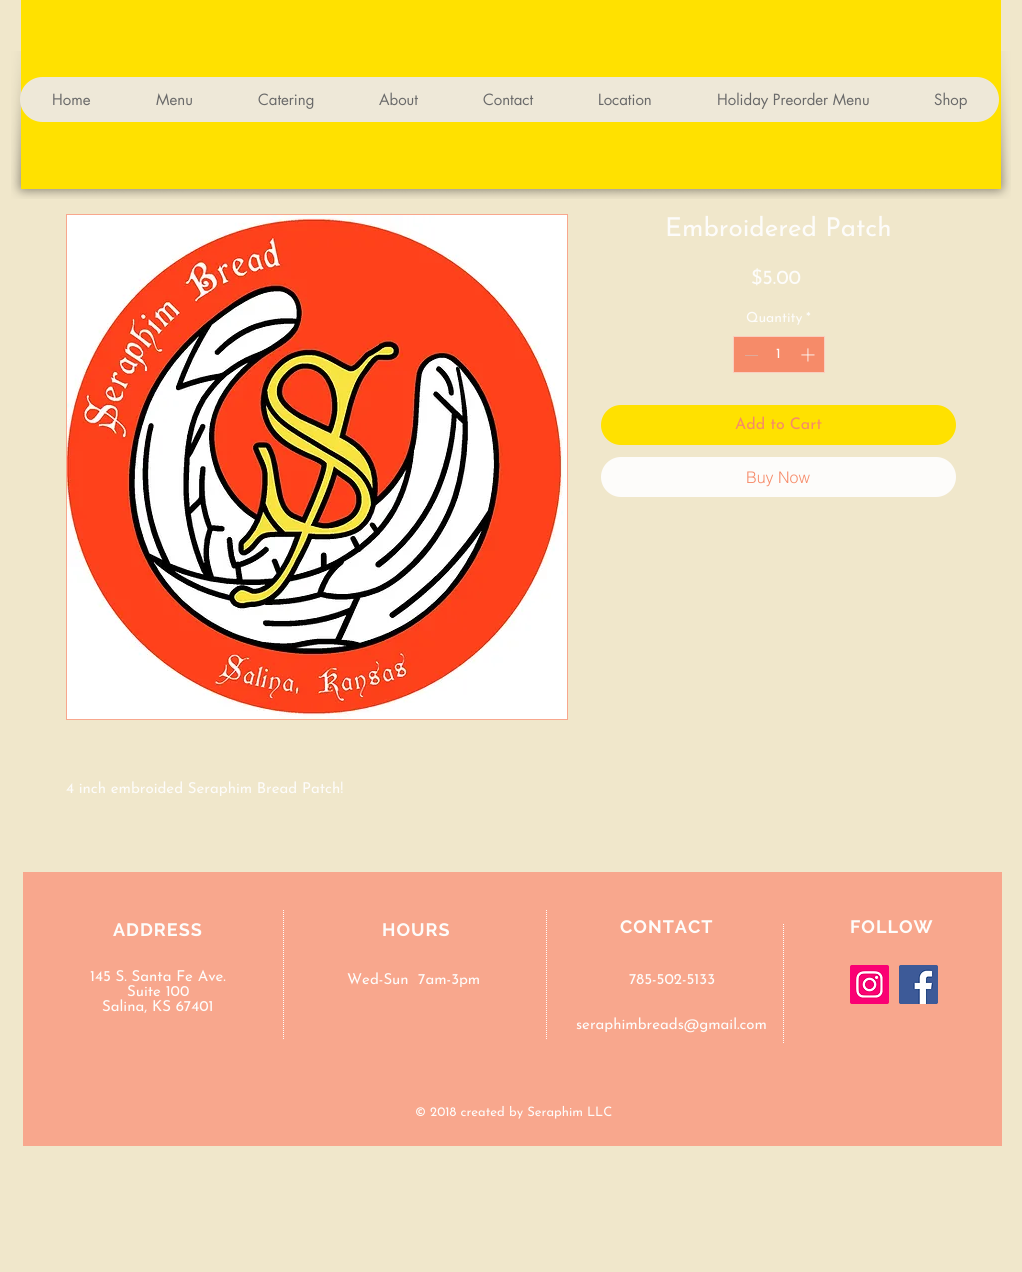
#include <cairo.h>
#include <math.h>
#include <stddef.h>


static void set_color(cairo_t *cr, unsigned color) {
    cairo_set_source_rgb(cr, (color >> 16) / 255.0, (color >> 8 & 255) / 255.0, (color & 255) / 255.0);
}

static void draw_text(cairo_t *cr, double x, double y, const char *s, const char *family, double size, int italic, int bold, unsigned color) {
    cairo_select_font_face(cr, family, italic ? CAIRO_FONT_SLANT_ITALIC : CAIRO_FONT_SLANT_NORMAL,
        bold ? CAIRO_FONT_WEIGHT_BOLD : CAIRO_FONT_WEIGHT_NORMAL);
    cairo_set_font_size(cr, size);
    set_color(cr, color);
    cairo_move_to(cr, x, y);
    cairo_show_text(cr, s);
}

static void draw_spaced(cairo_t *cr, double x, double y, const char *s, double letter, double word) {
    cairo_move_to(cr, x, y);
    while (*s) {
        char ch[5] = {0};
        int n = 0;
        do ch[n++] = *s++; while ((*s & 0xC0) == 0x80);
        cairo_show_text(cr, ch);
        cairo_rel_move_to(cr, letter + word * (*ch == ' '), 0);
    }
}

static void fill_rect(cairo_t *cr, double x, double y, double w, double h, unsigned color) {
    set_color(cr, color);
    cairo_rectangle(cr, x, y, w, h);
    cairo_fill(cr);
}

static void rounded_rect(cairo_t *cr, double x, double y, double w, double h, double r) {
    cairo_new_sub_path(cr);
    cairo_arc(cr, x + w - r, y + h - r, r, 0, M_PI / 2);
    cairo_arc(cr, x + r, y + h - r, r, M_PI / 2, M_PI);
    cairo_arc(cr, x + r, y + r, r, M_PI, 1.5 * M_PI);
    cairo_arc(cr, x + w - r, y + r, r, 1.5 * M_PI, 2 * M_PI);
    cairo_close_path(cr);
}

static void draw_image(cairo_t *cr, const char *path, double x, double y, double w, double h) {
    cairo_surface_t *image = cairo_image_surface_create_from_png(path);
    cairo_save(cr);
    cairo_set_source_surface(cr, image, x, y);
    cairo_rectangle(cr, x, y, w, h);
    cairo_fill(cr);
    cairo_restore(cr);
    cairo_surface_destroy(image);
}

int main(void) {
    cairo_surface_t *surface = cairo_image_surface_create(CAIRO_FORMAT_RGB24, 1022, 1272);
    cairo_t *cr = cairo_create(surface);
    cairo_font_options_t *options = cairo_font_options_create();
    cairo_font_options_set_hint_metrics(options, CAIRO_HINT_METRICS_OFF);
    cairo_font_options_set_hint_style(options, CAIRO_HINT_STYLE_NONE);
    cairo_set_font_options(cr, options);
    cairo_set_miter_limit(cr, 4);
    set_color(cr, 0xF0E7CB);
    cairo_paint(cr);
    draw_image(cr, "assets/img1.png", 11, 51, 45, 148);
    draw_image(cr, "assets/img3.png", 966, 51, 45, 148);
    fill_rect(cr, 21, 0, 980, 189, 0xFFE100);
    draw_image(cr, "assets/img2.png", 56, 189, 910, 10);
    set_color(cr, 0xEEE8D8);
    rounded_rect(cr, 20, 77, 979, 45, 22.5);
    cairo_fill(cr);
    draw_text(cr, 52, 105, "Home", "futura", 15, 0, 0, 0x696969);
    draw_text(cr, 156, 105, "Menu", "futura", 15, 0, 0, 0x696969);
    draw_text(cr, 258, 105, "Catering", "futura", 15, 0, 0, 0x696969);
    draw_text(cr, 379, 105, "About", "futura", 15, 0, 0, 0x696969);
    draw_text(cr, 483, 105, "Contact", "futura", 15, 0, 0, 0x696969);
    draw_text(cr, 598, 105, "Location", "futura", 15, 0, 0, 0x696969);
    draw_text(cr, 717, 105, "Holiday Preorder Menu", "futura", 15, 0, 0, 0x696969);
    draw_text(cr, 934, 105, "Shop", "futura", 15, 0, 0, 0x696969);
    draw_text(cr, 665, 236, "Embroidered Patch", "Josefin Sans Thin", 26, 0, 0, 0xFDFCFA);
    draw_text(cr, 751, 284, "$5.00", "Josefin Sans Thin", 20, 0, 0, 0xFDFCFA);
    draw_text(cr, 746, 322, "Quantity", "Josefin Sans Thin", 14, 0, 0, 0xFDFCFA);
    draw_text(cr, 806, 322, "*", "Josefin Sans Thin", 14, 0, 0, 0xFDFCFA);
    set_color(cr, 0xF68B69);
    cairo_rectangle(cr, 733.5, 336.5, 91, 36);
    cairo_fill_preserve(cr);
    set_color(cr, 0xFACFC0);
    cairo_set_line_width(cr, 1);
    cairo_stroke(cr);
    fill_rect(cr, 745, 355, 13, 1, 0xDFA998);
    draw_text(cr, 776, 358, "1", "Josefin Sans Thin", 14, 0, 0, 0xFDFCFA);
    draw_image(cr, "assets/img4.png", 801, 348, 14, 14);
    set_color(cr, 0xFFE100);
    rounded_rect(cr, 601, 405, 355, 40, 20);
    cairo_fill(cr);
    draw_text(cr, 735, 429, "Add to Cart", "Josefin Sans Thin", 16, 0, 0, 0xF68B69);
    set_color(cr, 0xFDFCFA);
    rounded_rect(cr, 601, 457, 355, 40, 20);
    cairo_fill(cr);
    draw_text(cr, 746, 483, "Buy Now", "helvetica Light", 16, 0, 0, 0xF68B69);
    cairo_rectangle(cr, 66.5, 214.5, 501, 505);
    set_color(cr, 0xF8A78D);
    cairo_stroke(cr);
    draw_image(cr, "assets/img5.png", 67, 215, 500, 504);
    draw_text(cr, 66, 793, "4 inch embroided Seraphim Bread Patch!", "Josefin Sans Thin", 15, 0, 0, 0xFDFCFA);
    fill_rect(cr, 23, 872, 979, 274, 0xF8A78D);
    cairo_select_font_face(cr, "Raleway", CAIRO_FONT_SLANT_NORMAL, CAIRO_FONT_WEIGHT_BOLD);
    cairo_set_font_size(cr, 18);
    set_color(cr, 0xFDFCFA);
    draw_spaced(cr, 113, 936, "ADDRESS", 1, 0);
    cairo_new_path(cr);
    cairo_move_to(cr, 283.5, 910);
    cairo_line_to(cr, 283.5, 1040);
    cairo_set_dash(cr, (double[]){1, 1}, 2, 0);
    cairo_stroke(cr);
    draw_spaced(cr, 382, 936, "HOURS", 1, 0);
    cairo_new_path(cr);
    cairo_move_to(cr, 546.5, 910);
    cairo_line_to(cr, 546.5, 1040);
    cairo_stroke(cr);
    draw_spaced(cr, 620, 933, "CONTACT", 1, 0);
    cairo_new_path(cr);
    cairo_move_to(cr, 783.5, 924);
    cairo_line_to(cr, 783.5, 1044);
    cairo_stroke(cr);
    draw_spaced(cr, 850, 933, "FOLLOW", 1, 0);
    draw_text(cr, 90, 981, "145 S. Santa Fe Ave.", "Josefin Sans Thin", 15, 0, 0, 0xFDFCFA);
    draw_text(cr, 127, 996, "Suite 100", "Josefin Sans Thin", 15, 0, 0, 0xFDFCFA);
    draw_text(cr, 102, 1011, "Salina, KS 67401", "Josefin Sans Thin", 15, 0, 0, 0xFDFCFA);
    draw_text(cr, 347, 984, "Wed-Sun  7am-3pm", "Josefin Sans Thin", 15, 0, 0, 0xFDFCFA);
    draw_text(cr, 629, 984, "785-502-5133", "Josefin Sans Thin", 15, 0, 0, 0xFDFCFA);
    draw_text(cr, 576, 1029, "seraphimbreads@gmail.com", "Josefin Sans Thin", 15, 0, 0, 0xFDFCFA);
    draw_image(cr, "assets/img6.png", 850, 965, 39, 39);
    draw_image(cr, "assets/img7.png", 899, 965, 39, 39);
    draw_text(cr, 415, 1116, "© 2018 created by Seraphim LLC", "Josefin Sans Thin", 13, 0, 0, 0xFDFCFA);
    cairo_surface_write_to_png(surface, "output.png");
    cairo_font_options_destroy(options);
    cairo_destroy(cr);
    cairo_surface_destroy(surface);
    return 0;
}
